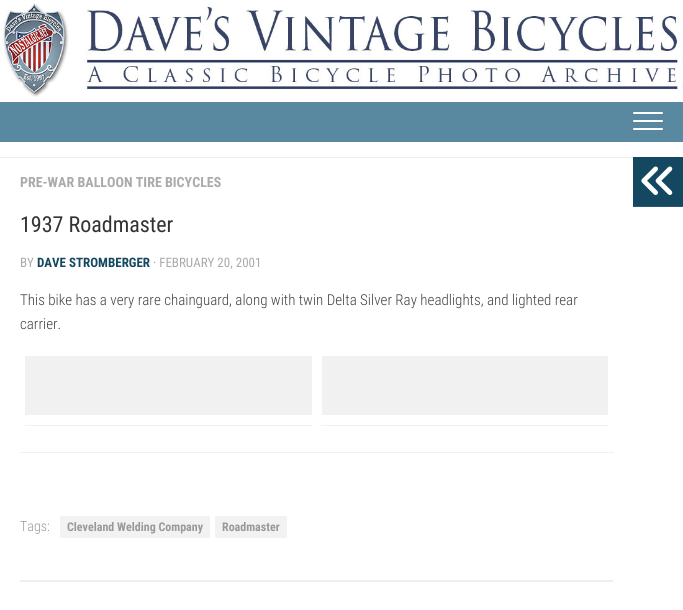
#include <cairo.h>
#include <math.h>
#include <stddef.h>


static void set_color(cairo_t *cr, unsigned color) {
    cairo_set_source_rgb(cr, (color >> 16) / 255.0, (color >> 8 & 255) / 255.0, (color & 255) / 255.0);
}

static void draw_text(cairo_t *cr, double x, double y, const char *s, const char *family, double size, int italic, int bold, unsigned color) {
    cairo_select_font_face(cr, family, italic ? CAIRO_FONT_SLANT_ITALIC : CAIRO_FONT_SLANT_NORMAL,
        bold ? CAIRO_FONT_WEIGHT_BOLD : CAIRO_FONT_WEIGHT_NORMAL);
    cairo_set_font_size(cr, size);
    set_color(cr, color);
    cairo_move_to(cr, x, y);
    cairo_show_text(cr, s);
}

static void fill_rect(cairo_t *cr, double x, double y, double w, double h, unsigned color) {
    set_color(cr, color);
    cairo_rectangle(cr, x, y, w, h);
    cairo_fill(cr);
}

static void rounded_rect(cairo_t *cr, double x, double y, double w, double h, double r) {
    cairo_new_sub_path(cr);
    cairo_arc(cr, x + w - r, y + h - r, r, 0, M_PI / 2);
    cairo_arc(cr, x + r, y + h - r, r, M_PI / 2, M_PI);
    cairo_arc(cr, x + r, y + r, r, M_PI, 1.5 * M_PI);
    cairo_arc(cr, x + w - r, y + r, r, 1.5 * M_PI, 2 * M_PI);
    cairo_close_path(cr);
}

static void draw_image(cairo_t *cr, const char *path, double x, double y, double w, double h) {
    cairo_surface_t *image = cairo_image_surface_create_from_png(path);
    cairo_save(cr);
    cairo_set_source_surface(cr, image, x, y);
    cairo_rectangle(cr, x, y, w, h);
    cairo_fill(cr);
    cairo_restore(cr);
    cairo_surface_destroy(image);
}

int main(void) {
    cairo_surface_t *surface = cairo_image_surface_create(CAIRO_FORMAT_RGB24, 683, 610);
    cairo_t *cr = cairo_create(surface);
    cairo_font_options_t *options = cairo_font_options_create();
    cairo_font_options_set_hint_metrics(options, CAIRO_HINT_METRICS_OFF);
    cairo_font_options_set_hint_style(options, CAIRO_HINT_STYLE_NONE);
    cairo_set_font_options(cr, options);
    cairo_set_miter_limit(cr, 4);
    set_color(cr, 0xFFFFFF);
    cairo_paint(cr);
    draw_image(cr, "assets/img1.png", 1, 0, 682, 97);
    fill_rect(cr, 0, 102, 683, 40, 0x5989A1);
    set_color(cr, 0xFFFFFF);
    rounded_rect(cr, 633, 112, 30, 2, 1);
    cairo_fill(cr);
    rounded_rect(cr, 633, 120, 30, 2, 1);
    cairo_fill(cr);
    rounded_rect(cr, 633, 128, 30, 2, 1);
    cairo_fill(cr);
    fill_rect(cr, 0, 157, 633, 1, 0xEEEEEE);
    draw_text(cr, 20, 187, "PRE-WAR BALLOON TIRE BICYCLES", "Roboto Condensed", 14, 0, 1, 0xAAAAAA);
    draw_text(cr, 20, 232, "1937 Roadmaster", "Roboto Condensed", 22, 0, 0, 0x333333);
    draw_text(cr, 20, 267, "BY", "Roboto Condensed", 13, 0, 0, 0xAAAAAA);
    draw_text(cr, 37, 267, "DAVE STROMBERGER", "Roboto Condensed", 13, 0, 1, 0x144861);
    draw_text(cr, 153, 267, "· FEBRUARY 20, 2001", "Roboto Condensed", 13, 0, 0, 0xAAAAAA);
    draw_text(cr, 20, 305, "This bike has a very rare chainguard, along with twin Delta Silver Ray headlights, and lighted rear", "Roboto Condensed Light", 15, 0, 0, 0x444444);
    draw_text(cr, 20, 329, "carrier.", "Roboto Condensed Light", 15, 0, 0, 0x444444);
    fill_rect(cr, 20, 452, 594, 1, 0xF1F1F1);
    fill_rect(cr, 322, 356, 286, 58, 0xF1F1F1);
    fill_rect(cr, 321, 414, 288, 1, 0xF1F1F1);
    fill_rect(cr, 321, 425, 288, 1, 0xF1F1F1);
    fill_rect(cr, 25, 356, 287, 59, 0xF1F1F1);
    fill_rect(cr, 25, 425, 287, 1, 0xF1F1F1);
    draw_text(cr, 20, 531, "Tags:", "Roboto Condensed Light", 14, 0, 0, 0x999999);
    set_color(cr, 0xF2F2F2);
    rounded_rect(cr, 60, 516, 150, 22, 2);
    cairo_fill(cr);
    draw_text(cr, 67, 531, "Cleveland Welding Company", "Roboto Condensed", 12, 0, 1, 0x999999);
    set_color(cr, 0xF2F2F2);
    rounded_rect(cr, 215, 516, 72, 22, 2);
    cairo_fill(cr);
    draw_text(cr, 222, 531, "Roadmaster", "Roboto Condensed", 12, 0, 1, 0x999999);
    fill_rect(cr, 20, 580, 593, 2, 0xEEEEEE);
    fill_rect(cr, 633, 157, 50, 49, 0x144861);
    fill_rect(cr, 633, 206, 50, 1, 0x2C5A71);
    draw_image(cr, "assets/img2.png", 641, 166, 32, 29);
    cairo_surface_write_to_png(surface, "output.png");
    cairo_font_options_destroy(options);
    cairo_destroy(cr);
    cairo_surface_destroy(surface);
    return 0;
}
